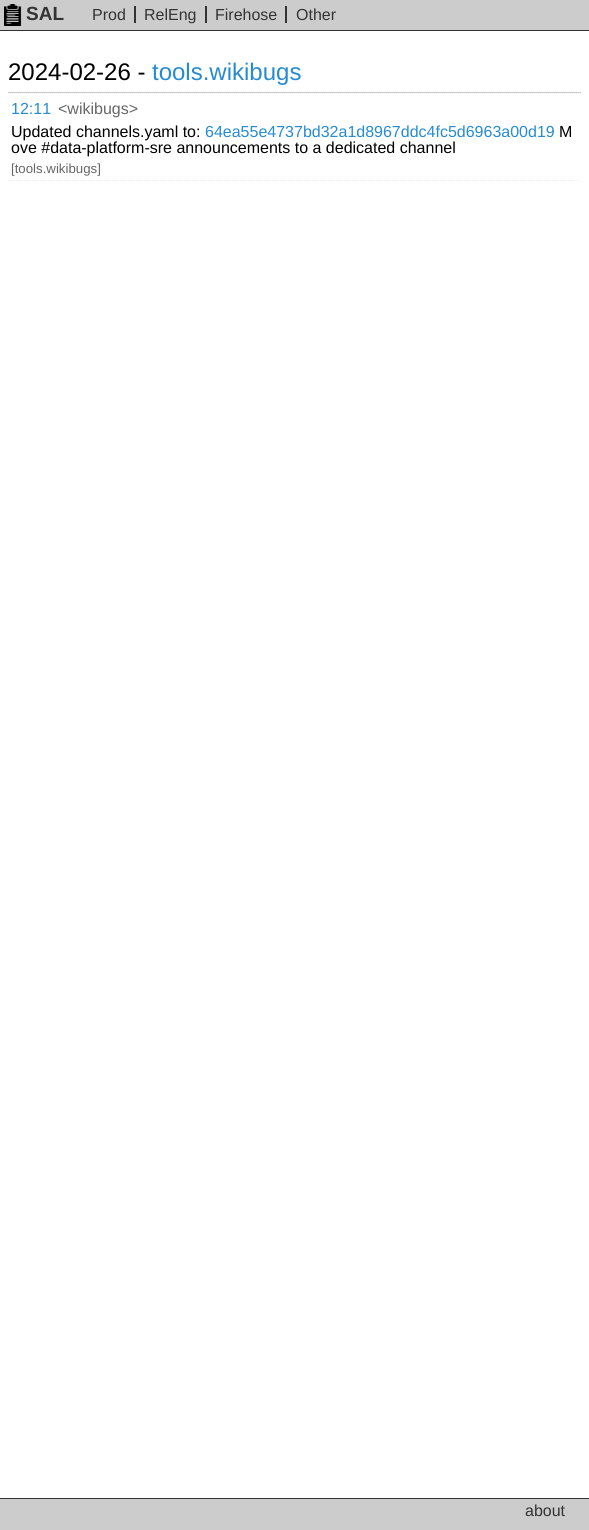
#include <cairo.h>
#include <math.h>
#include <stddef.h>


static void set_color(cairo_t *cr, unsigned color) {
    cairo_set_source_rgb(cr, (color >> 16) / 255.0, (color >> 8 & 255) / 255.0, (color & 255) / 255.0);
}

static void draw_text(cairo_t *cr, double x, double y, const char *s, const char *family, double size, int italic, int bold, unsigned color) {
    cairo_select_font_face(cr, family, italic ? CAIRO_FONT_SLANT_ITALIC : CAIRO_FONT_SLANT_NORMAL,
        bold ? CAIRO_FONT_WEIGHT_BOLD : CAIRO_FONT_WEIGHT_NORMAL);
    cairo_set_font_size(cr, size);
    set_color(cr, color);
    cairo_move_to(cr, x, y);
    cairo_show_text(cr, s);
}

static void fill_rect(cairo_t *cr, double x, double y, double w, double h, unsigned color) {
    set_color(cr, color);
    cairo_rectangle(cr, x, y, w, h);
    cairo_fill(cr);
}

static void draw_image(cairo_t *cr, const char *path, double x, double y, double w, double h) {
    cairo_surface_t *image = cairo_image_surface_create_from_png(path);
    cairo_save(cr);
    cairo_set_source_surface(cr, image, x, y);
    cairo_rectangle(cr, x, y, w, h);
    cairo_fill(cr);
    cairo_restore(cr);
    cairo_surface_destroy(image);
}

int main(void) {
    cairo_surface_t *surface = cairo_image_surface_create(CAIRO_FORMAT_RGB24, 589, 1530);
    cairo_t *cr = cairo_create(surface);
    cairo_font_options_t *options = cairo_font_options_create();
    cairo_font_options_set_hint_metrics(options, CAIRO_HINT_METRICS_OFF);
    cairo_font_options_set_hint_style(options, CAIRO_HINT_STYLE_NONE);
    cairo_set_font_options(cr, options);
    cairo_set_miter_limit(cr, 4);
    set_color(cr, 0xFFFFFF);
    cairo_paint(cr);
    fill_rect(cr, 0, 0, 589, 30, 0xCCCCCC);
    fill_rect(cr, 0, 30, 589, 1, 0x333333);
    draw_image(cr, "assets/img1.png", 4, 4, 18, 22);
    draw_text(cr, 26, 20, "SAL", "Liberation Sans", 19, 0, 1, 0x333333);
    draw_text(cr, 92, 20, "Prod", "Liberation Sans", 16, 0, 0, 0x333333);
    fill_rect(cr, 134, 6, 2, 17, 0x333333);
    draw_text(cr, 144, 20, "RelEng", "Liberation Sans", 16, 0, 0, 0x333333);
    draw_text(cr, 215, 20, "Firehose", "Liberation Sans", 16, 0, 0, 0x333333);
    fill_rect(cr, 205, 6, 2, 17, 0x333333);
    fill_rect(cr, 285, 6, 2, 17, 0x333333);
    draw_text(cr, 296, 20, "Other", "Liberation Sans", 16, 0, 0, 0x333333);
    cairo_new_path(cr);
    cairo_move_to(cr, 8, 93.5);
    cairo_line_to(cr, 581, 93.5);
    set_color(cr, 0xEEEEEE);
    cairo_set_line_width(cr, 1);
    cairo_set_dash(cr, (double[]){1, 1}, 2, 0);
    cairo_stroke(cr);
    fill_rect(cr, 8, 92, 573, 1, 0xCCCCCC);
    draw_text(cr, 8, 80, "2024-02-26 -", "Liberation Sans", 24, 0, 0, 0x000000);
    draw_text(cr, 152, 80, "tools.wikibugs", "Liberation Sans", 24, 0, 0, 0x268BD2);
    cairo_new_path(cr);
    cairo_move_to(cr, 8, 180.5);
    cairo_line_to(cr, 581, 180.5);
    set_color(cr, 0xEEEEEE);
    cairo_stroke(cr);
    draw_text(cr, 11, 114, "12:11", "Liberation Sans", 16, 0, 0, 0x268BD2);
    draw_text(cr, 58, 114, "<wikibugs>", "Liberation Sans", 16, 0, 0, 0x666666);
    draw_text(cr, 11, 137, "Updated channels.yaml to:", "Liberation Sans", 16, 0, 0, 0x000000);
    draw_text(cr, 205, 137, "64ea55e4737bd32a1d8967ddc4fc5d6963a00d19", "Liberation Sans", 16, 0, 0, 0x268BD2);
    draw_text(cr, 559, 137, "M", "Liberation Sans", 16, 0, 0, 0x000000);
    draw_text(cr, 11, 153, "ove #data-platform-sre announcements to a dedicated channel", "Liberation Sans", 16, 0, 0, 0x000000);
    draw_text(cr, 11, 173, "[tools.wikibugs]", "Liberation Sans", 13.25, 0, 0, 0x666666);
    fill_rect(cr, 0, 1499, 589, 31, 0xCCCCCC);
    fill_rect(cr, 0, 1498, 589, 1, 0x333333);
    draw_text(cr, 525, 1516, "about", "Liberation Sans", 16, 0, 0, 0x333333);
    cairo_surface_write_to_png(surface, "output.png");
    cairo_font_options_destroy(options);
    cairo_destroy(cr);
    cairo_surface_destroy(surface);
    return 0;
}
